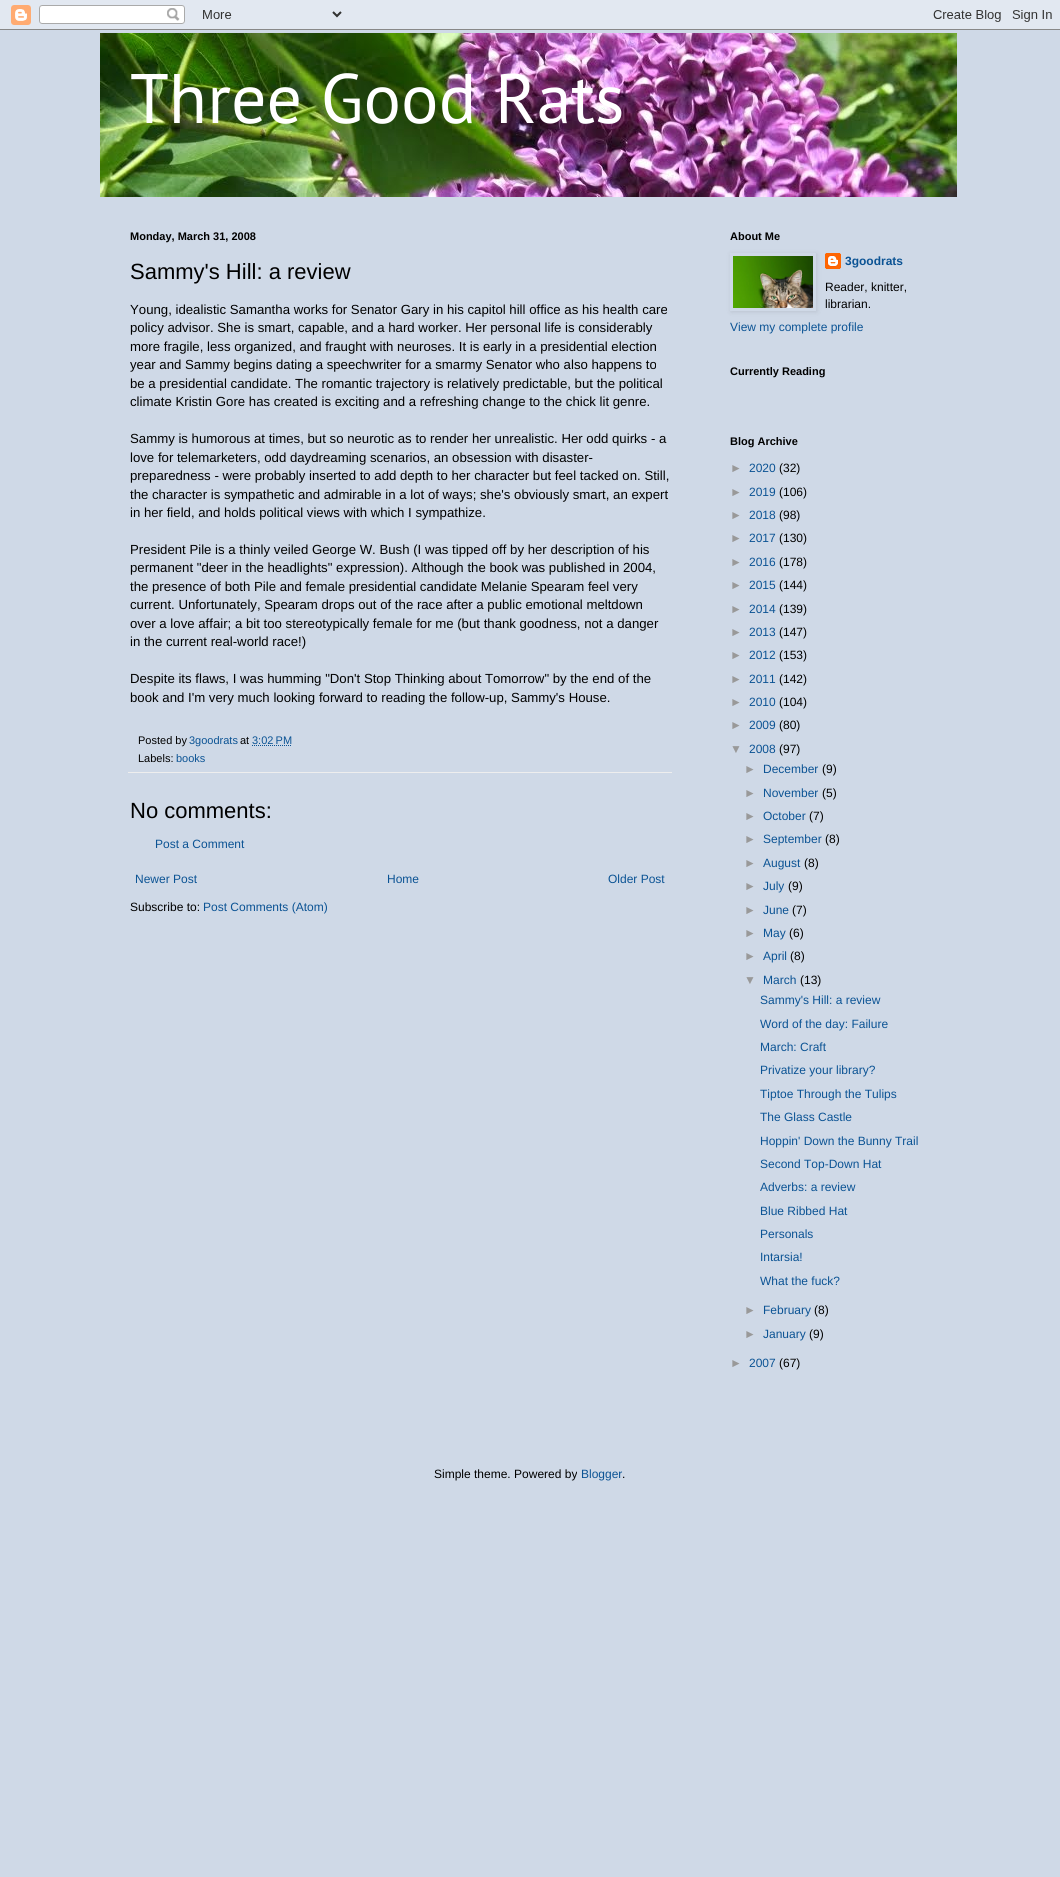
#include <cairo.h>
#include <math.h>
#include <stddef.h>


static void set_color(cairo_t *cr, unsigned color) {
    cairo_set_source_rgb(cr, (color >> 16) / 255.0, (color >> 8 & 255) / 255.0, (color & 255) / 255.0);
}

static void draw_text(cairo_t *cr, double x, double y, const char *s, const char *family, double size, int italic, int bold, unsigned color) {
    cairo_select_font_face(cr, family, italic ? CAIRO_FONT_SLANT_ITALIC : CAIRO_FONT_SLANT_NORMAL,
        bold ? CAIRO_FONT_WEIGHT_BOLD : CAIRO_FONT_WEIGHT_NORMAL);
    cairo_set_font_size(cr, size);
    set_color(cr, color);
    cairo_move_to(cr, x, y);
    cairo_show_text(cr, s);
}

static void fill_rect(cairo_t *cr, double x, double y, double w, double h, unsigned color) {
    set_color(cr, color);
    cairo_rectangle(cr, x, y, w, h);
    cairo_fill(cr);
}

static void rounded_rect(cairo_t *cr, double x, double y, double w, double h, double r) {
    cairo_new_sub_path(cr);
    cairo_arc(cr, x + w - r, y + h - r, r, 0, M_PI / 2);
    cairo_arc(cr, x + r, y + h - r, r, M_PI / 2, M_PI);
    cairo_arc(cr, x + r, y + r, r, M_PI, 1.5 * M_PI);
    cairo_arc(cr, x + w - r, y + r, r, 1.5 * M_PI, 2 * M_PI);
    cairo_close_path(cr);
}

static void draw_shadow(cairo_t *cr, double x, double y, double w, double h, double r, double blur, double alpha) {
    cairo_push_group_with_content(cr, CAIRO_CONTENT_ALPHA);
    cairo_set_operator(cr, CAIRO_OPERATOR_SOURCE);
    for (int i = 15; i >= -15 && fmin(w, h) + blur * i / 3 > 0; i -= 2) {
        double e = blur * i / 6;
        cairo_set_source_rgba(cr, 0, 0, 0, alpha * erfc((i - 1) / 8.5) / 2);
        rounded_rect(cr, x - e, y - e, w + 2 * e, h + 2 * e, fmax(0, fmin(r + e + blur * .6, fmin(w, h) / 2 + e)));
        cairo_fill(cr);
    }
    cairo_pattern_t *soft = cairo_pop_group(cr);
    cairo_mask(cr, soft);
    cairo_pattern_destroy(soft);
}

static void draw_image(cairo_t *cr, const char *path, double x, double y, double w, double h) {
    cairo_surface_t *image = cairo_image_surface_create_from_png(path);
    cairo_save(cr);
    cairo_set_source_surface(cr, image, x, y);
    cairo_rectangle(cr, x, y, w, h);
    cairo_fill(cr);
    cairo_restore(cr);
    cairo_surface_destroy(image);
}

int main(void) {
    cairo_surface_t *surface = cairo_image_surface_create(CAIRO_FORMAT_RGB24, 1060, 1877);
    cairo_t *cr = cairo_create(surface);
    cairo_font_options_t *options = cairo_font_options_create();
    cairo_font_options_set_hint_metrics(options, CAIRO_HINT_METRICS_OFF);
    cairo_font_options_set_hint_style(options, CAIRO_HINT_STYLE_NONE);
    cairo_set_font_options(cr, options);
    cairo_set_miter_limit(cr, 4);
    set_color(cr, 0xCFD9E7);
    cairo_paint(cr);
    draw_image(cr, "assets/img1.png", 0, 0, 1060, 30);
    draw_image(cr, "assets/img2.png", 100, 33, 857, 164);
    draw_text(cr, 130, 123, "Three Good Rats", "PT Sans", 70, 0, 0, 0xFFFFFF);
    draw_text(cr, 130, 240, "Monday, March 31, 2008", "Liberation Sans", 11, 0, 1, 0x000000);
    draw_text(cr, 130, 279, "Sammy's Hill: a review", "Liberation Sans", 22, 0, 0, 0x000000);
    draw_text(cr, 130, 314, "Young, idealistic Samantha works for Senator Gary in his capitol hill office as his health care", "Liberation Sans", 13.2, 0, 0, 0x000000);
    draw_text(cr, 130, 332, "policy advisor. She is smart, capable, and a hard worker. Her personal life is considerably", "Liberation Sans", 13.2, 0, 0, 0x000000);
    draw_text(cr, 130, 351, "more fragile, less organized, and fraught with neuroses. It is early in a presidential election", "Liberation Sans", 13.2, 0, 0, 0x000000);
    draw_text(cr, 130, 369, "year and Sammy begins dating a speechwriter for a smarmy Senator who also happens to", "Liberation Sans", 13.2, 0, 0, 0x000000);
    draw_text(cr, 130, 388, "be a presidential candidate. The romantic trajectory is relatively predictable, but the political", "Liberation Sans", 13.2, 0, 0, 0x000000);
    draw_text(cr, 130, 406, "climate Kristin Gore has created is exciting and a refreshing change to the chick lit genre.", "Liberation Sans", 13.2, 0, 0, 0x000000);
    draw_text(cr, 130, 443, "Sammy is humorous at times, but so neurotic as to render her unrealistic. Her odd quirks - a", "Liberation Sans", 13.2, 0, 0, 0x000000);
    draw_text(cr, 130, 462, "love for telemarketers, odd daydreaming scenarios, an obsession with disaster-", "Liberation Sans", 13.2, 0, 0, 0x000000);
    draw_text(cr, 130, 480, "preparedness - were probably inserted to add depth to her character but feel tacked on. Still,", "Liberation Sans", 13.2, 0, 0, 0x000000);
    draw_text(cr, 130, 499, "the character is sympathetic and admirable in a lot of ways; she's obviously smart, an expert", "Liberation Sans", 13.2, 0, 0, 0x000000);
    draw_text(cr, 130, 517, "in her field, and holds political views with which I sympathize.", "Liberation Sans", 13.2, 0, 0, 0x000000);
    draw_text(cr, 130, 554, "President Pile is a thinly veiled George W. Bush (I was tipped off by her description of his", "Liberation Sans", 13.2, 0, 0, 0x000000);
    draw_text(cr, 130, 572, "permanent \"deer in the headlights\" expression). Although the book was published in 2004,", "Liberation Sans", 13.2, 0, 0, 0x000000);
    draw_text(cr, 130, 591, "the presence of both Pile and female presidential candidate Melanie Spearam feel very", "Liberation Sans", 13.2, 0, 0, 0x000000);
    draw_text(cr, 130, 609, "current. Unfortunately, Spearam drops out of the race after a public emotional meltdown", "Liberation Sans", 13.2, 0, 0, 0x000000);
    draw_text(cr, 130, 628, "over a love affair; a bit too stereotypically female for me (but thank goodness, not a danger", "Liberation Sans", 13.2, 0, 0, 0x000000);
    draw_text(cr, 130, 646, "in the current real-world race!)", "Liberation Sans", 13.2, 0, 0, 0x000000);
    draw_text(cr, 130, 683, "Despite its flaws, I was humming \"Don't Stop Thinking about Tomorrow\" by the end of the", "Liberation Sans", 13.2, 0, 0, 0x000000);
    draw_text(cr, 130, 702, "book and I'm very much looking forward to reading the follow-up, Sammy's House.", "Liberation Sans", 13.2, 0, 0, 0x000000);
    fill_rect(cr, 128, 772, 544, 1, 0xEEEEEE);
    draw_text(cr, 138, 744, "Posted by", "Liberation Sans", 11, 0, 0, 0x000000);
    draw_text(cr, 189, 744, "3goodrats", "Liberation Sans", 11, 0, 0, 0x0B5394);
    draw_text(cr, 240, 744, "at", "Liberation Sans", 11, 0, 0, 0x000000);
    draw_text(cr, 252, 744, "3:02 PM", "Liberation Sans", 11, 0, 0, 0x0B5394);
    cairo_new_path(cr);
    cairo_move_to(cr, 252, 745.5);
    cairo_line_to(cr, 291.5, 745.5);
    cairo_set_line_width(cr, 1);
    cairo_set_dash(cr, (double[]){1, 1}, 2, 0);
    cairo_stroke(cr);
    draw_text(cr, 138, 762, "Labels:", "Liberation Sans", 11, 0, 0, 0x000000);
    draw_text(cr, 176, 762, "books", "Liberation Sans", 11, 0, 0, 0x0B5394);
    draw_text(cr, 130, 818, "No comments:", "Liberation Sans", 22, 0, 0, 0x000000);
    draw_text(cr, 155, 848, "Post a Comment", "Liberation Sans", 12, 0, 0, 0x0B5394);
    draw_text(cr, 135, 883, "Newer Post", "Liberation Sans", 12, 0, 0, 0x0B5394);
    draw_text(cr, 387, 883, "Home", "Liberation Sans", 12, 0, 0, 0x0B5394);
    draw_text(cr, 608, 883, "Older Post", "Liberation Sans", 12, 0, 0, 0x0B5394);
    draw_text(cr, 130, 911, "Subscribe to:", "Liberation Sans", 12, 0, 0, 0x000000);
    draw_text(cr, 203, 911, "Post Comments (Atom)", "Liberation Sans", 12, 0, 0, 0x0B5394);
    draw_text(cr, 730, 240, "About Me", "Liberation Sans", 11, 0, 1, 0x000000);
    draw_image(cr, "assets/img4.png", 825, 253, 16, 16);
    cairo_save(cr);
    cairo_set_fill_rule(cr, CAIRO_FILL_RULE_EVEN_ODD);
    cairo_new_path(cr);
    cairo_move_to(cr, 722, 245);
    cairo_line_to(cr, 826, 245);
    cairo_line_to(cr, 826, 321);
    cairo_line_to(cr, 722, 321);
    cairo_close_path(cr);
    cairo_move_to(cr, 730, 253);
    cairo_line_to(cr, 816, 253);
    cairo_line_to(cr, 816, 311);
    cairo_line_to(cr, 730, 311);
    cairo_close_path(cr);
    cairo_clip(cr);
    set_color(cr, 0x000000);
    draw_shadow(cr, 731, 254, 86, 58, 0, 2.5, 0.1);
    cairo_restore(cr);
    draw_image(cr, "assets/img3.png", 733, 256, 80, 52);
    draw_text(cr, 845, 265, "3goodrats", "Liberation Sans", 12, 0, 1, 0x0B5394);
    draw_text(cr, 825, 291, "Reader, knitter,", "Liberation Sans", 12, 0, 0, 0x000000);
    draw_text(cr, 825, 308, "librarian.", "Liberation Sans", 12, 0, 0, 0x000000);
    draw_text(cr, 730, 331, "View my complete profile", "Liberation Sans", 12, 0, 0, 0x0B5394);
    draw_text(cr, 730, 375, "Currently Reading", "Liberation Sans", 11, 0, 1, 0x000000);
    draw_text(cr, 730, 445, "Blog Archive", "Liberation Sans", 11, 0, 1, 0x000000);
    draw_text(cr, 730, 472, "►", "Liberation Sans", 12, 0, 0, 0x999999);
    draw_text(cr, 749, 472, "2020", "Liberation Sans", 12, 0, 0, 0x0B5394);
    draw_text(cr, 779, 472, "(32)", "Liberation Sans", 12, 0, 0, 0x000000);
    draw_text(cr, 730, 496, "►", "Liberation Sans", 12, 0, 0, 0x999999);
    draw_text(cr, 749, 496, "2019", "Liberation Sans", 12, 0, 0, 0x0B5394);
    draw_text(cr, 779, 496, "(106)", "Liberation Sans", 12, 0, 0, 0x000000);
    draw_text(cr, 730, 519, "►", "Liberation Sans", 12, 0, 0, 0x999999);
    draw_text(cr, 749, 519, "2018", "Liberation Sans", 12, 0, 0, 0x0B5394);
    draw_text(cr, 779, 519, "(98)", "Liberation Sans", 12, 0, 0, 0x000000);
    draw_text(cr, 730, 542, "►", "Liberation Sans", 12, 0, 0, 0x999999);
    draw_text(cr, 749, 542, "2017", "Liberation Sans", 12, 0, 0, 0x0B5394);
    draw_text(cr, 779, 542, "(130)", "Liberation Sans", 12, 0, 0, 0x000000);
    draw_text(cr, 730, 566, "►", "Liberation Sans", 12, 0, 0, 0x999999);
    draw_text(cr, 749, 566, "2016", "Liberation Sans", 12, 0, 0, 0x0B5394);
    draw_text(cr, 779, 566, "(178)", "Liberation Sans", 12, 0, 0, 0x000000);
    draw_text(cr, 730, 589, "►", "Liberation Sans", 12, 0, 0, 0x999999);
    draw_text(cr, 749, 589, "2015", "Liberation Sans", 12, 0, 0, 0x0B5394);
    draw_text(cr, 779, 589, "(144)", "Liberation Sans", 12, 0, 0, 0x000000);
    draw_text(cr, 730, 613, "►", "Liberation Sans", 12, 0, 0, 0x999999);
    draw_text(cr, 749, 613, "2014", "Liberation Sans", 12, 0, 0, 0x0B5394);
    draw_text(cr, 779, 613, "(139)", "Liberation Sans", 12, 0, 0, 0x000000);
    draw_text(cr, 730, 636, "►", "Liberation Sans", 12, 0, 0, 0x999999);
    draw_text(cr, 749, 636, "2013", "Liberation Sans", 12, 0, 0, 0x0B5394);
    draw_text(cr, 779, 636, "(147)", "Liberation Sans", 12, 0, 0, 0x000000);
    draw_text(cr, 730, 659, "►", "Liberation Sans", 12, 0, 0, 0x999999);
    draw_text(cr, 749, 659, "2012", "Liberation Sans", 12, 0, 0, 0x0B5394);
    draw_text(cr, 779, 659, "(153)", "Liberation Sans", 12, 0, 0, 0x000000);
    draw_text(cr, 730, 683, "►", "Liberation Sans", 12, 0, 0, 0x999999);
    draw_text(cr, 749, 683, "2011", "Liberation Sans", 12, 0, 0, 0x0B5394);
    draw_text(cr, 779, 683, "(142)", "Liberation Sans", 12, 0, 0, 0x000000);
    draw_text(cr, 730, 706, "►", "Liberation Sans", 12, 0, 0, 0x999999);
    draw_text(cr, 749, 706, "2010", "Liberation Sans", 12, 0, 0, 0x0B5394);
    draw_text(cr, 779, 706, "(104)", "Liberation Sans", 12, 0, 0, 0x000000);
    draw_text(cr, 730, 729, "►", "Liberation Sans", 12, 0, 0, 0x999999);
    draw_text(cr, 749, 729, "2009", "Liberation Sans", 12, 0, 0, 0x0B5394);
    draw_text(cr, 779, 729, "(80)", "Liberation Sans", 12, 0, 0, 0x000000);
    draw_text(cr, 730, 753, "▼", "Liberation Sans", 12, 0, 0, 0x999999);
    draw_text(cr, 749, 753, "2008", "Liberation Sans", 12, 0, 0, 0x0B5394);
    draw_text(cr, 779, 753, "(97)", "Liberation Sans", 12, 0, 0, 0x000000);
    draw_text(cr, 744, 773, "►", "Liberation Sans", 12, 0, 0, 0x999999);
    draw_text(cr, 763, 773, "December", "Liberation Sans", 12, 0, 0, 0x0B5394);
    draw_text(cr, 822, 773, "(9)", "Liberation Sans", 12, 0, 0, 0x000000);
    draw_text(cr, 744, 797, "►", "Liberation Sans", 12, 0, 0, 0x999999);
    draw_text(cr, 763, 797, "November", "Liberation Sans", 12, 0, 0, 0x0B5394);
    draw_text(cr, 822, 797, "(5)", "Liberation Sans", 12, 0, 0, 0x000000);
    draw_text(cr, 744, 820, "►", "Liberation Sans", 12, 0, 0, 0x999999);
    draw_text(cr, 763, 820, "October", "Liberation Sans", 12, 0, 0, 0x0B5394);
    draw_text(cr, 809, 820, "(7)", "Liberation Sans", 12, 0, 0, 0x000000);
    draw_text(cr, 744, 843, "►", "Liberation Sans", 12, 0, 0, 0x999999);
    draw_text(cr, 763, 843, "September", "Liberation Sans", 12, 0, 0, 0x0B5394);
    draw_text(cr, 825, 843, "(8)", "Liberation Sans", 12, 0, 0, 0x000000);
    draw_text(cr, 744, 867, "►", "Liberation Sans", 12, 0, 0, 0x999999);
    draw_text(cr, 763, 867, "August", "Liberation Sans", 12, 0, 0, 0x0B5394);
    draw_text(cr, 804, 867, "(8)", "Liberation Sans", 12, 0, 0, 0x000000);
    draw_text(cr, 744, 890, "►", "Liberation Sans", 12, 0, 0, 0x999999);
    draw_text(cr, 763, 890, "July", "Liberation Sans", 12, 0, 0, 0x0B5394);
    draw_text(cr, 788, 890, "(9)", "Liberation Sans", 12, 0, 0, 0x000000);
    draw_text(cr, 744, 914, "►", "Liberation Sans", 12, 0, 0, 0x999999);
    draw_text(cr, 763, 914, "June", "Liberation Sans", 12, 0, 0, 0x0B5394);
    draw_text(cr, 792, 914, "(7)", "Liberation Sans", 12, 0, 0, 0x000000);
    draw_text(cr, 744, 937, "►", "Liberation Sans", 12, 0, 0, 0x999999);
    draw_text(cr, 763, 937, "May", "Liberation Sans", 12, 0, 0, 0x0B5394);
    draw_text(cr, 789, 937, "(6)", "Liberation Sans", 12, 0, 0, 0x000000);
    draw_text(cr, 744, 960, "►", "Liberation Sans", 12, 0, 0, 0x999999);
    draw_text(cr, 763, 960, "April", "Liberation Sans", 12, 0, 0, 0x0B5394);
    draw_text(cr, 790, 960, "(8)", "Liberation Sans", 12, 0, 0, 0x000000);
    draw_text(cr, 744, 984, "▼", "Liberation Sans", 12, 0, 0, 0x999999);
    draw_text(cr, 763, 984, "March", "Liberation Sans", 12, 0, 0, 0x0B5394);
    draw_text(cr, 800, 984, "(13)", "Liberation Sans", 12, 0, 0, 0x000000);
    draw_text(cr, 760, 1004, "Sammy's Hill: a review", "Liberation Sans", 12, 0, 0, 0x0B5394);
    draw_text(cr, 760, 1028, "Word of the day: Failure", "Liberation Sans", 12, 0, 0, 0x0B5394);
    draw_text(cr, 760, 1051, "March: Craft", "Liberation Sans", 12, 0, 0, 0x0B5394);
    draw_text(cr, 760, 1074, "Privatize your library?", "Liberation Sans", 12, 0, 0, 0x0B5394);
    draw_text(cr, 760, 1098, "Tiptoe Through the Tulips", "Liberation Sans", 12, 0, 0, 0x0B5394);
    draw_text(cr, 760, 1121, "The Glass Castle", "Liberation Sans", 12, 0, 0, 0x0B5394);
    draw_text(cr, 760, 1145, "Hoppin' Down the Bunny Trail", "Liberation Sans", 12, 0, 0, 0x0B5394);
    draw_text(cr, 760, 1168, "Second Top-Down Hat", "Liberation Sans", 12, 0, 0, 0x0B5394);
    draw_text(cr, 760, 1191, "Adverbs: a review", "Liberation Sans", 12, 0, 0, 0x0B5394);
    draw_text(cr, 760, 1215, "Blue Ribbed Hat", "Liberation Sans", 12, 0, 0, 0x0B5394);
    draw_text(cr, 760, 1238, "Personals", "Liberation Sans", 12, 0, 0, 0x0B5394);
    draw_text(cr, 760, 1261, "Intarsia!", "Liberation Sans", 12, 0, 0, 0x0B5394);
    draw_text(cr, 760, 1285, "What the fuck?", "Liberation Sans", 12, 0, 0, 0x0B5394);
    draw_text(cr, 744, 1314, "►", "Liberation Sans", 12, 0, 0, 0x999999);
    draw_text(cr, 763, 1314, "February", "Liberation Sans", 12, 0, 0, 0x0B5394);
    draw_text(cr, 814, 1314, "(8)", "Liberation Sans", 12, 0, 0, 0x000000);
    draw_text(cr, 744, 1338, "►", "Liberation Sans", 12, 0, 0, 0x999999);
    draw_text(cr, 763, 1338, "January", "Liberation Sans", 12, 0, 0, 0x0B5394);
    draw_text(cr, 809, 1338, "(9)", "Liberation Sans", 12, 0, 0, 0x000000);
    draw_text(cr, 730, 1367, "►", "Liberation Sans", 12, 0, 0, 0x999999);
    draw_text(cr, 749, 1367, "2007", "Liberation Sans", 12, 0, 0, 0x0B5394);
    draw_text(cr, 779, 1367, "(67)", "Liberation Sans", 12, 0, 0, 0x000000);
    draw_text(cr, 434, 1478, "Simple theme. Powered by", "Liberation Sans", 12, 0, 0, 0x000000);
    draw_text(cr, 581, 1478, "Blogger", "Liberation Sans", 12, 0, 0, 0x0B5394);
    draw_text(cr, 622, 1478, ".", "Liberation Sans", 12, 0, 0, 0x000000);
    cairo_surface_write_to_png(surface, "output.png");
    cairo_font_options_destroy(options);
    cairo_destroy(cr);
    cairo_surface_destroy(surface);
    return 0;
}
